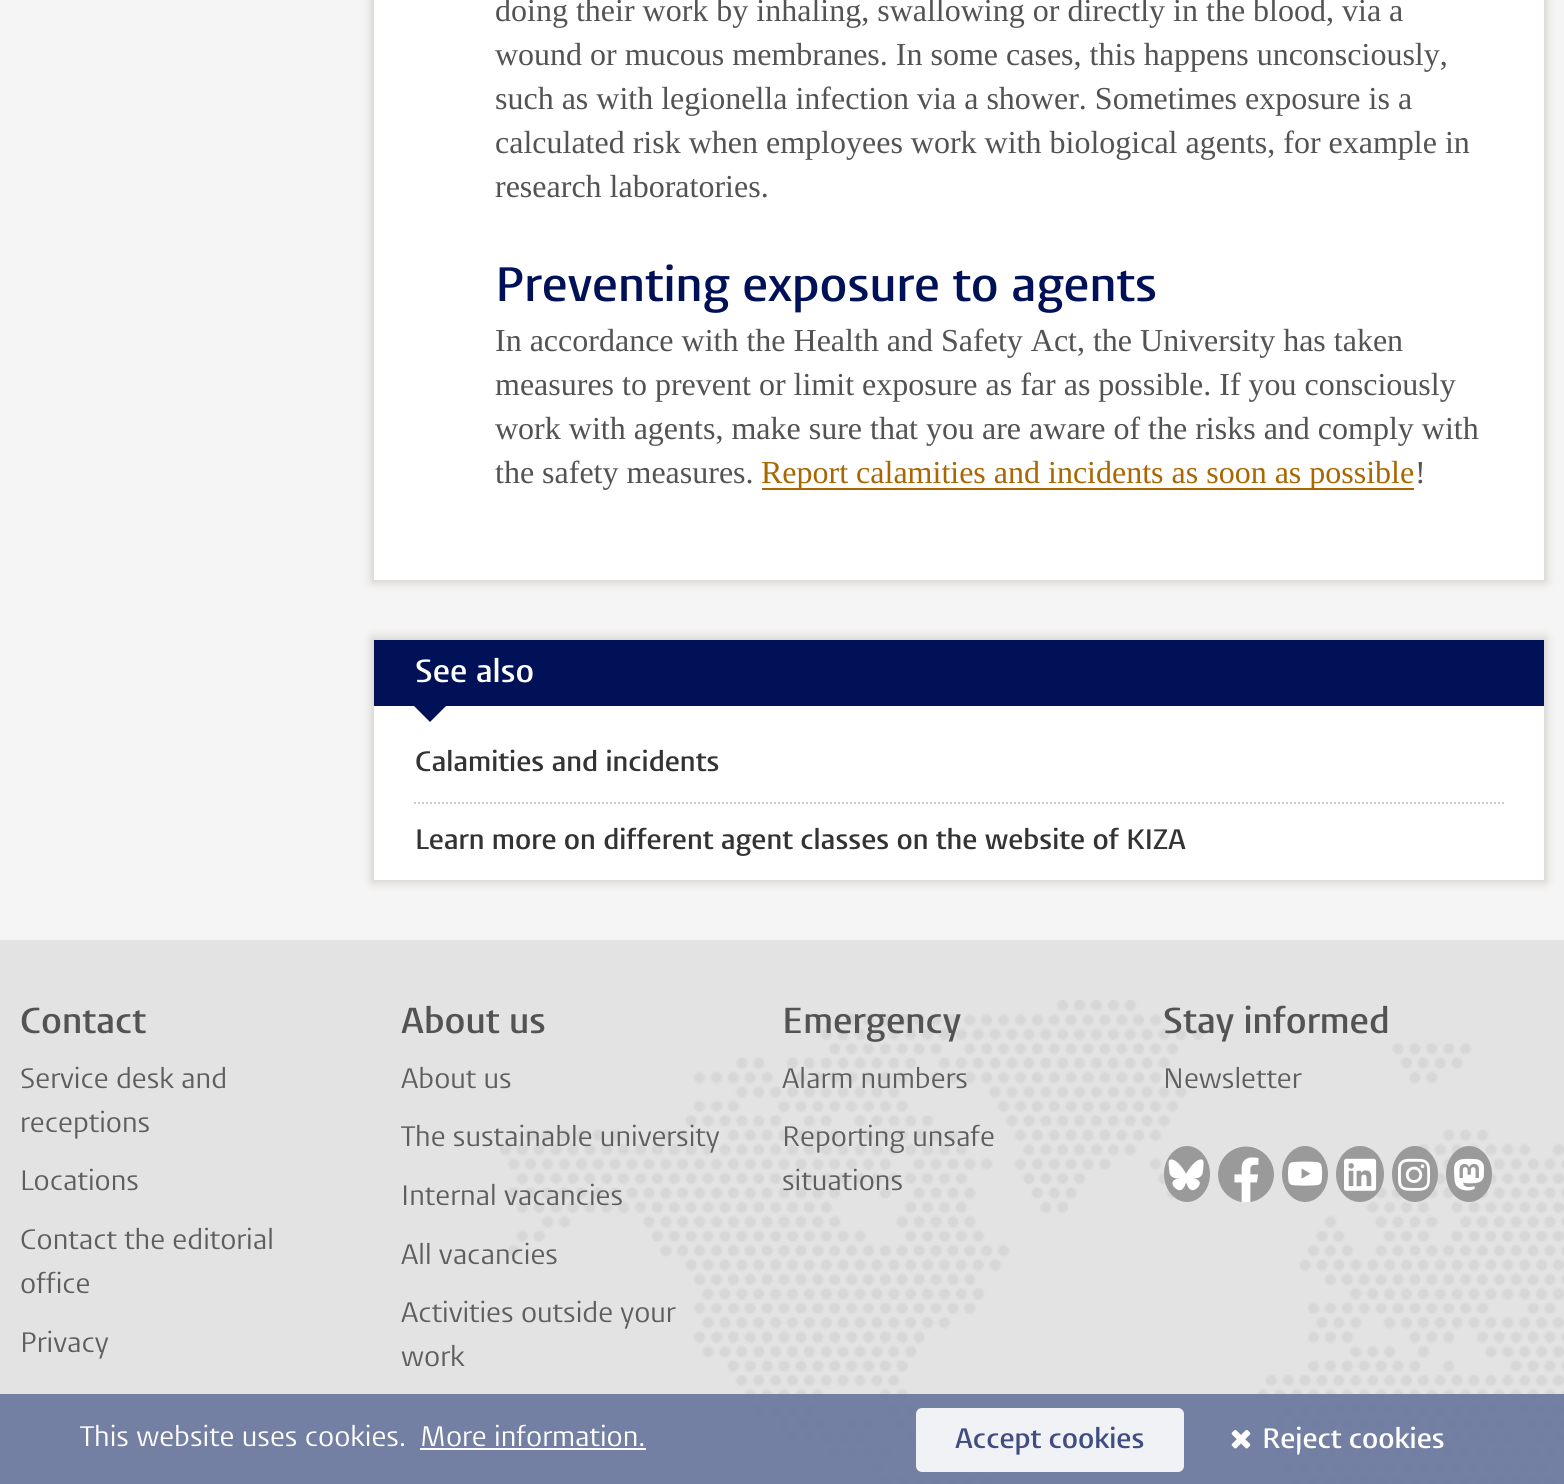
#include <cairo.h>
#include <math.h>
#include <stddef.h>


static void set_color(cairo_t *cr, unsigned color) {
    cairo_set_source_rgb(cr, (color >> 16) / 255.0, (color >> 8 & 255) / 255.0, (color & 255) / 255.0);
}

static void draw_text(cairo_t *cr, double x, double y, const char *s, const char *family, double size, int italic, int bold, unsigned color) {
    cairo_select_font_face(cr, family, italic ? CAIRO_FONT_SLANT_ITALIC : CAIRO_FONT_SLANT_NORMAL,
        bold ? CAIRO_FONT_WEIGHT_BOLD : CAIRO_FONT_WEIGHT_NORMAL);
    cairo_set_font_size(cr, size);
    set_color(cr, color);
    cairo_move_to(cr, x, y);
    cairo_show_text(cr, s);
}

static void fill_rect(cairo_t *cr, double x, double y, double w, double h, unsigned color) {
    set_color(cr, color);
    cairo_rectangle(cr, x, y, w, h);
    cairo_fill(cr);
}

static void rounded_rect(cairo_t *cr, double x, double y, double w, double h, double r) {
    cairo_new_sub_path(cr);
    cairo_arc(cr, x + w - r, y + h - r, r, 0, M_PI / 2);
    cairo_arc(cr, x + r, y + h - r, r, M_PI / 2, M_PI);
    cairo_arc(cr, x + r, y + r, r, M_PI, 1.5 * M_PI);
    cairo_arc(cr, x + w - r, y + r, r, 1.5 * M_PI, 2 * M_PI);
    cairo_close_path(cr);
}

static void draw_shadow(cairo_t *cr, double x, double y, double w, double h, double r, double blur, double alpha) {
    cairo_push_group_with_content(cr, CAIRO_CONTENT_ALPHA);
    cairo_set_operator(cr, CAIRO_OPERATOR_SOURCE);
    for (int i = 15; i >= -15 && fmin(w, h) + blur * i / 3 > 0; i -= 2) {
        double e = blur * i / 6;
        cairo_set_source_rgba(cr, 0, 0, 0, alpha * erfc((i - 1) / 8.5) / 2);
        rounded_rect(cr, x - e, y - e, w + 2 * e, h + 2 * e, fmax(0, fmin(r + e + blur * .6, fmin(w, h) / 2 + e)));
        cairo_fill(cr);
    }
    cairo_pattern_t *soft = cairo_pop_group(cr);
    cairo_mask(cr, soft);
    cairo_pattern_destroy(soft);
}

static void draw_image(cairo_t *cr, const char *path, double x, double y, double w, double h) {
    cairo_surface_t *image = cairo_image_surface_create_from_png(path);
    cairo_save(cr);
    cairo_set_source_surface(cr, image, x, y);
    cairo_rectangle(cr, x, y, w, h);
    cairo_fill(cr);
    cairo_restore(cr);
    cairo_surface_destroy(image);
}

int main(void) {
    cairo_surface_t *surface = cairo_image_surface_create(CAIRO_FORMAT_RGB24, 1564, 1484);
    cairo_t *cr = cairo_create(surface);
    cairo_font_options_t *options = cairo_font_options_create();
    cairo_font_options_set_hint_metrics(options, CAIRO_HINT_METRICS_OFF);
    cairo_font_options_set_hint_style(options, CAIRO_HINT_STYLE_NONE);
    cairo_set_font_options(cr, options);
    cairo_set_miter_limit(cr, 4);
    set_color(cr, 0xF5F5F5);
    cairo_paint(cr);
    set_color(cr, 0x786E64);
    draw_shadow(cr, 372, -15, 1174, 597, 0, 5, 0.3);
    fill_rect(cr, 374, 0, 1170, 580, 0xFFFFFF);
    draw_text(cr, 495, 21, "doing their work by inhaling, swallowing or directly in the blood, via a", "Liberation Serif", 32, 0, 0, 0x535353);
    draw_text(cr, 495, 65, "wound or mucous membranes. In some cases, this happens unconsciously,", "Liberation Serif", 32, 0, 0, 0x535353);
    draw_text(cr, 495, 109, "such as with legionella infection via a shower. Sometimes exposure is a", "Liberation Serif", 32, 0, 0, 0x535353);
    draw_text(cr, 495, 153, "calculated risk when employees work with biological agents, for example in", "Liberation Serif", 32, 0, 0, 0x535353);
    draw_text(cr, 495, 197, "research laboratories.", "Liberation Serif", 32, 0, 0, 0x535353);
    draw_text(cr, 495, 301, "Preventing exposure to agents", "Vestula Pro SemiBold", 48, 0, 0, 0x001158);
    draw_text(cr, 495, 351, "In accordance with the Health and Safety Act, the University has taken", "Liberation Serif", 32, 0, 0, 0x535353);
    draw_text(cr, 495, 395, "measures to prevent or limit exposure as far as possible. If you consciously", "Liberation Serif", 32, 0, 0, 0x535353);
    draw_text(cr, 495, 439, "work with agents, make sure that you are aware of the risks and comply with", "Liberation Serif", 32, 0, 0, 0x535353);
    draw_text(cr, 495, 483, "the safety measures.", "Liberation Serif", 32, 0, 0, 0x535353);
    fill_rect(cr, 762, 488, 652, 2, 0xAA6600);
    draw_text(cr, 761, 483, "Report calamities and incidents as soon as possible", "Liberation Serif", 32, 0, 0, 0xAA6600);
    draw_text(cr, 1415, 483, "!", "Liberation Serif", 32, 0, 0, 0x535353);
    set_color(cr, 0x786E64);
    draw_shadow(cr, 372, 638, 1174, 244, 0, 5, 0.3);
    fill_rect(cr, 374, 706, 1170, 174, 0xFFFFFF);
    fill_rect(cr, 374, 640, 1170, 66, 0x001158);
    draw_text(cr, 415, 682, "See also", "Vestula Pro SemiBold", 32, 0, 0, 0xFFFFFF);
    set_color(cr, 0x001158);
    cairo_new_path(cr);
    cairo_move_to(cr, 414, 706);
    cairo_line_to(cr, 446, 706);
    cairo_line_to(cr, 430, 722);
    cairo_close_path(cr);
    cairo_fill(cr);
    draw_text(cr, 415, 771, "Calamities and incidents", "Vestula Pro SemiBold", 28, 0, 0, 0x333333);
    cairo_new_path(cr);
    cairo_move_to(cr, 414, 803);
    cairo_line_to(cr, 1504, 803);
    set_color(cr, 0xCCCCCC);
    cairo_set_dash(cr, (double[]){2, 2}, 2, 0);
    cairo_stroke(cr);
    draw_text(cr, 415, 849, "Learn more on different agent classes on the website of KIZA", "Vestula Pro SemiBold", 28, 0, 0, 0x333333);
    fill_rect(cr, 0, 940, 1564, 544, 0xE3E3E3);
    draw_image(cr, "assets/img1.png", 500, 1000, 1064, 484);
    draw_text(cr, 20, 1033, "Contact", "Vestula Pro SemiBold", 36, 0, 0, 0x535353);
    draw_text(cr, 20, 1088, "Service desk and", "Vestula Pro", 28, 0, 0, 0x5E5E5E);
    draw_text(cr, 20, 1132, "receptions", "Vestula Pro", 28, 0, 0, 0x5E5E5E);
    draw_text(cr, 20, 1190, "Locations", "Vestula Pro", 28, 0, 0, 0x5E5E5E);
    draw_text(cr, 20, 1249, "Contact the editorial", "Vestula Pro", 28, 0, 0, 0x5E5E5E);
    draw_text(cr, 20, 1293, "office", "Vestula Pro", 28, 0, 0, 0x5E5E5E);
    draw_text(cr, 20, 1352, "Privacy", "Vestula Pro", 28, 0, 0, 0x5E5E5E);
    draw_text(cr, 401, 1033, "About us", "Vestula Pro SemiBold", 36, 0, 0, 0x535353);
    draw_text(cr, 401, 1088, "About us", "Vestula Pro", 28, 0, 0, 0x5E5E5E);
    draw_text(cr, 401, 1146, "The sustainable university", "Vestula Pro", 28, 0, 0, 0x5E5E5E);
    draw_text(cr, 401, 1205, "Internal vacancies", "Vestula Pro", 28, 0, 0, 0x5E5E5E);
    draw_text(cr, 401, 1264, "All vacancies", "Vestula Pro", 28, 0, 0, 0x5E5E5E);
    draw_text(cr, 401, 1322, "Activities outside your", "Vestula Pro", 28, 0, 0, 0x5E5E5E);
    draw_text(cr, 401, 1366, "work", "Vestula Pro", 28, 0, 0, 0x5E5E5E);
    draw_text(cr, 782, 1033, "Emergency", "Vestula Pro SemiBold", 36, 0, 0, 0x535353);
    draw_text(cr, 782, 1088, "Alarm numbers", "Vestula Pro", 28, 0, 0, 0x5E5E5E);
    draw_text(cr, 782, 1146, "Reporting unsafe", "Vestula Pro", 28, 0, 0, 0x5E5E5E);
    draw_text(cr, 782, 1190, "situations", "Vestula Pro", 28, 0, 0, 0x5E5E5E);
    draw_text(cr, 1163, 1033, "Stay informed", "Vestula Pro SemiBold", 36, 0, 0, 0x535353);
    draw_text(cr, 1163, 1088, "Newsletter", "Vestula Pro", 28, 0, 0, 0x5E5E5E);
    set_color(cr, 0x9A9A9A);
    cairo_new_path(cr);
    cairo_move_to(cr, 1187, 1146);
    cairo_curve_to(cr, 1199.5, 1146, 1210, 1158.5, 1210, 1174);
    cairo_curve_to(cr, 1210, 1189.5, 1199.5, 1202, 1187, 1202);
    cairo_curve_to(cr, 1174.5, 1202, 1164, 1189.5, 1164, 1174);
    cairo_curve_to(cr, 1164, 1158.5, 1174.5, 1146, 1187, 1146);
    cairo_close_path(cr);
    cairo_fill(cr);
    draw_image(cr, "assets/img2.png", 1168, 1159, 36, 32);
    set_color(cr, 0xFFFFFF);
    cairo_arc(cr, 1246, 1174, 28, 0, 2 * M_PI);
    cairo_fill(cr);
    draw_image(cr, "assets/img3.png", 1218, 1146, 56, 56);
    set_color(cr, 0x9A9A9A);
    cairo_new_path(cr);
    cairo_move_to(cr, 1305, 1146);
    cairo_curve_to(cr, 1317.5, 1146, 1328, 1158.5, 1328, 1174);
    cairo_curve_to(cr, 1328, 1189.5, 1317.5, 1202, 1305, 1202);
    cairo_curve_to(cr, 1292.5, 1202, 1282, 1189.5, 1282, 1174);
    cairo_curve_to(cr, 1282, 1158.5, 1292.5, 1146, 1305, 1146);
    cairo_close_path(cr);
    cairo_fill(cr);
    draw_image(cr, "assets/img4.png", 1288, 1161, 35, 25);
    cairo_new_path(cr);
    cairo_move_to(cr, 1360, 1146);
    cairo_curve_to(cr, 1373.5, 1146, 1384, 1158.5, 1384, 1174);
    cairo_curve_to(cr, 1384, 1189.5, 1373.5, 1202, 1360, 1202);
    cairo_curve_to(cr, 1346.5, 1202, 1336, 1189.5, 1336, 1174);
    cairo_curve_to(cr, 1336, 1158.5, 1346.5, 1146, 1360, 1146);
    cairo_close_path(cr);
    cairo_fill(cr);
    draw_image(cr, "assets/img5.png", 1344, 1158, 33, 33);
    cairo_new_path(cr);
    cairo_move_to(cr, 1415, 1146);
    cairo_curve_to(cr, 1427.5, 1146, 1438, 1158.5, 1438, 1174);
    cairo_curve_to(cr, 1438, 1189.5, 1427.5, 1202, 1415, 1202);
    cairo_curve_to(cr, 1402.5, 1202, 1392, 1189.5, 1392, 1174);
    cairo_curve_to(cr, 1392, 1158.5, 1402.5, 1146, 1415, 1146);
    cairo_close_path(cr);
    cairo_fill(cr);
    draw_image(cr, "assets/img6.png", 1398, 1158, 32, 33);
    cairo_new_path(cr);
    cairo_move_to(cr, 1469, 1146);
    cairo_curve_to(cr, 1481.5, 1146, 1492, 1158.5, 1492, 1174);
    cairo_curve_to(cr, 1492, 1189.5, 1481.5, 1202, 1469, 1202);
    cairo_curve_to(cr, 1456.5, 1202, 1446, 1189.5, 1446, 1174);
    cairo_curve_to(cr, 1446, 1158.5, 1456.5, 1146, 1469, 1146);
    cairo_close_path(cr);
    cairo_fill(cr);
    draw_image(cr, "assets/img7.png", 1454, 1158, 30, 33);
    cairo_set_source_rgba(cr, 0.408, 0.463, 0.612, 0.9);
    cairo_rectangle(cr, 0, 1394, 1564, 90);
    cairo_fill(cr);
    draw_text(cr, 80, 1446, "This website uses cookies.", "Vestula Pro", 28, 0, 0, 0xFFFFFF);
    draw_text(cr, 420, 1446, "More information.", "Vestula Pro", 28, 0, 0, 0xFFFFFF);
    fill_rect(cr, 420, 1448, 226, 2, 0xFFFFFF);
    set_color(cr, 0xF1F2F6);
    rounded_rect(cr, 916, 1408, 268, 64, 6);
    cairo_fill(cr);
    draw_text(cr, 955, 1448, "Accept cookies", "Vestula Pro SemiBold", 28, 0, 0, 0x404D82);
    draw_image(cr, "assets/img8.png", 1231, 1429, 20, 20);
    draw_text(cr, 1262, 1448, "Reject cookies", "Vestula Pro SemiBold", 28, 0, 0, 0xFFFFFF);
    cairo_surface_write_to_png(surface, "output.png");
    cairo_font_options_destroy(options);
    cairo_destroy(cr);
    cairo_surface_destroy(surface);
    return 0;
}
